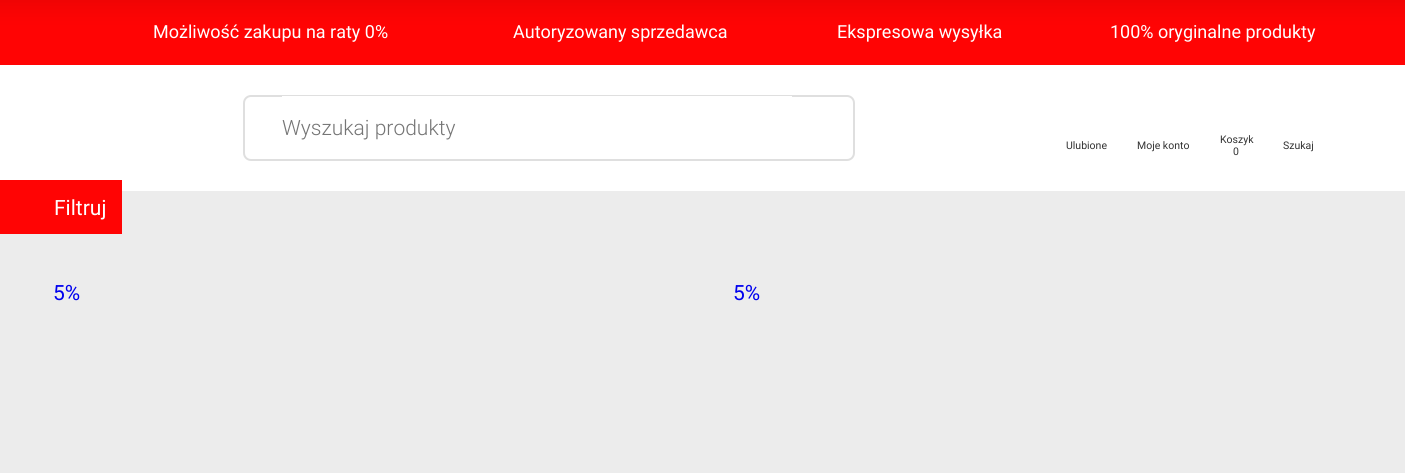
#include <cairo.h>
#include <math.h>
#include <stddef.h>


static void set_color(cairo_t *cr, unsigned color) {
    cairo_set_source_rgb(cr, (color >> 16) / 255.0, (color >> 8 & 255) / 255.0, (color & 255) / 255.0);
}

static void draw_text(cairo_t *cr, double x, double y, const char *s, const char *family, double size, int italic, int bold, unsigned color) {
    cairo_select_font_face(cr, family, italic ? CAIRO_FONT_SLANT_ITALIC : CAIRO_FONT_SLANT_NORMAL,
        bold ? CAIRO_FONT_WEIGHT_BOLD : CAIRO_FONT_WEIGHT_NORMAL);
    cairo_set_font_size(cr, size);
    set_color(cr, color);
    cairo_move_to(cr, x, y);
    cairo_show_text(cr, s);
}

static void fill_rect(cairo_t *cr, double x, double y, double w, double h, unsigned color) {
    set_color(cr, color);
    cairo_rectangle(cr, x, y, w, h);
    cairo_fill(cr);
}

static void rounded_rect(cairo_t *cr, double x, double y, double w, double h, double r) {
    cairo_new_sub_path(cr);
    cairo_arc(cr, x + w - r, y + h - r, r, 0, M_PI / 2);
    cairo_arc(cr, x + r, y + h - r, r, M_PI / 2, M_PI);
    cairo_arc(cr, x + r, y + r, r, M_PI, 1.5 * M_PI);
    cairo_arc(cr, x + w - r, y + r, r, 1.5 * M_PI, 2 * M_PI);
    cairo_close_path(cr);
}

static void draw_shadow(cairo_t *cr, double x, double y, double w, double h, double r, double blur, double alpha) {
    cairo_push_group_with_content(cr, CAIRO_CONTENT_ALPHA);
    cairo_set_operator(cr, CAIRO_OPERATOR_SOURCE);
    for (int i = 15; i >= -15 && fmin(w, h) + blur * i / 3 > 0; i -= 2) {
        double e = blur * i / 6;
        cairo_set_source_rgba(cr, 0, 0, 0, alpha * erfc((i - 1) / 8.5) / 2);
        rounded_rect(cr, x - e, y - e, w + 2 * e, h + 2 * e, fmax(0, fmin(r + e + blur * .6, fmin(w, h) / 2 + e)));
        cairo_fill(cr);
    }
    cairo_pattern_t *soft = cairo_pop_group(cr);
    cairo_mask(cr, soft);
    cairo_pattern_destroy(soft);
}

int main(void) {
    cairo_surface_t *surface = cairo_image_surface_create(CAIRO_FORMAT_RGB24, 1405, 473);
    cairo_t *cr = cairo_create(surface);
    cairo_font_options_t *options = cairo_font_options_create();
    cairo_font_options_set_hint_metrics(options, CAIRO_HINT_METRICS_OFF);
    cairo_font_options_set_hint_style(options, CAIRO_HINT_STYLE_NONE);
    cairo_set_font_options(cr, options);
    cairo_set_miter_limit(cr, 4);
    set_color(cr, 0xFFFFFF);
    cairo_paint(cr);
    fill_rect(cr, 0, 0, 1405, 65, 0xFF0404);
    set_color(cr, 0x000000);
    draw_shadow(cr, -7, -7, 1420, 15, 0, 11, 0.08);
    draw_text(cr, 153, 38, "Możliwość zakupu na raty 0%", "Roboto", 18, 0, 0, 0xFFFFFF);
    draw_text(cr, 513, 38, "Autoryzowany sprzedawca", "Roboto", 18, 0, 0, 0xFFFFFF);
    draw_text(cr, 837, 38, "Ekspresowa wysyłka", "Roboto", 18, 0, 0, 0xFFFFFF);
    draw_text(cr, 1110, 38, "100% oryginalne produkty", "Roboto", 18, 0, 0, 0xFFFFFF);
    rounded_rect(cr, 244, 96, 610, 64, 7);
    set_color(cr, 0xDFDFDF);
    cairo_stroke(cr);
    fill_rect(cr, 282, 96, 510, 1, 0xFFFFFF);
    draw_text(cr, 282, 135, "Wyszukaj produkty", "Roboto Light", 21, 0, 0, 0x757575);
    draw_text(cr, 1066, 149, "Ulubione", "Roboto", 10.5, 0, 0, 0x333333);
    draw_text(cr, 1137, 149, "Moje konto", "Roboto", 10.5, 0, 0, 0x333333);
    draw_text(cr, 1220, 143, "Koszyk", "Roboto", 10.5, 0, 0, 0x333333);
    draw_text(cr, 1233, 155, "0", "Roboto", 10.5, 0, 0, 0x333333);
    draw_text(cr, 1283, 149, "Szukaj", "Roboto", 10.5, 0, 0, 0x333333);
    fill_rect(cr, 0, 191, 1405, 282, 0xECECEC);
    fill_rect(cr, 0, 180, 122, 54, 0xFF0404);
    draw_text(cr, 54, 215, "Filtruj", "Roboto", 21, 0, 0, 0xFFFFFF);
    draw_text(cr, 53, 300, "5%", "Roboto", 21, 0, 0, 0x0000EE);
    draw_text(cr, 733, 300, "5%", "Roboto", 21, 0, 0, 0x0000EE);
    cairo_surface_write_to_png(surface, "output.png");
    cairo_font_options_destroy(options);
    cairo_destroy(cr);
    cairo_surface_destroy(surface);
    return 0;
}
